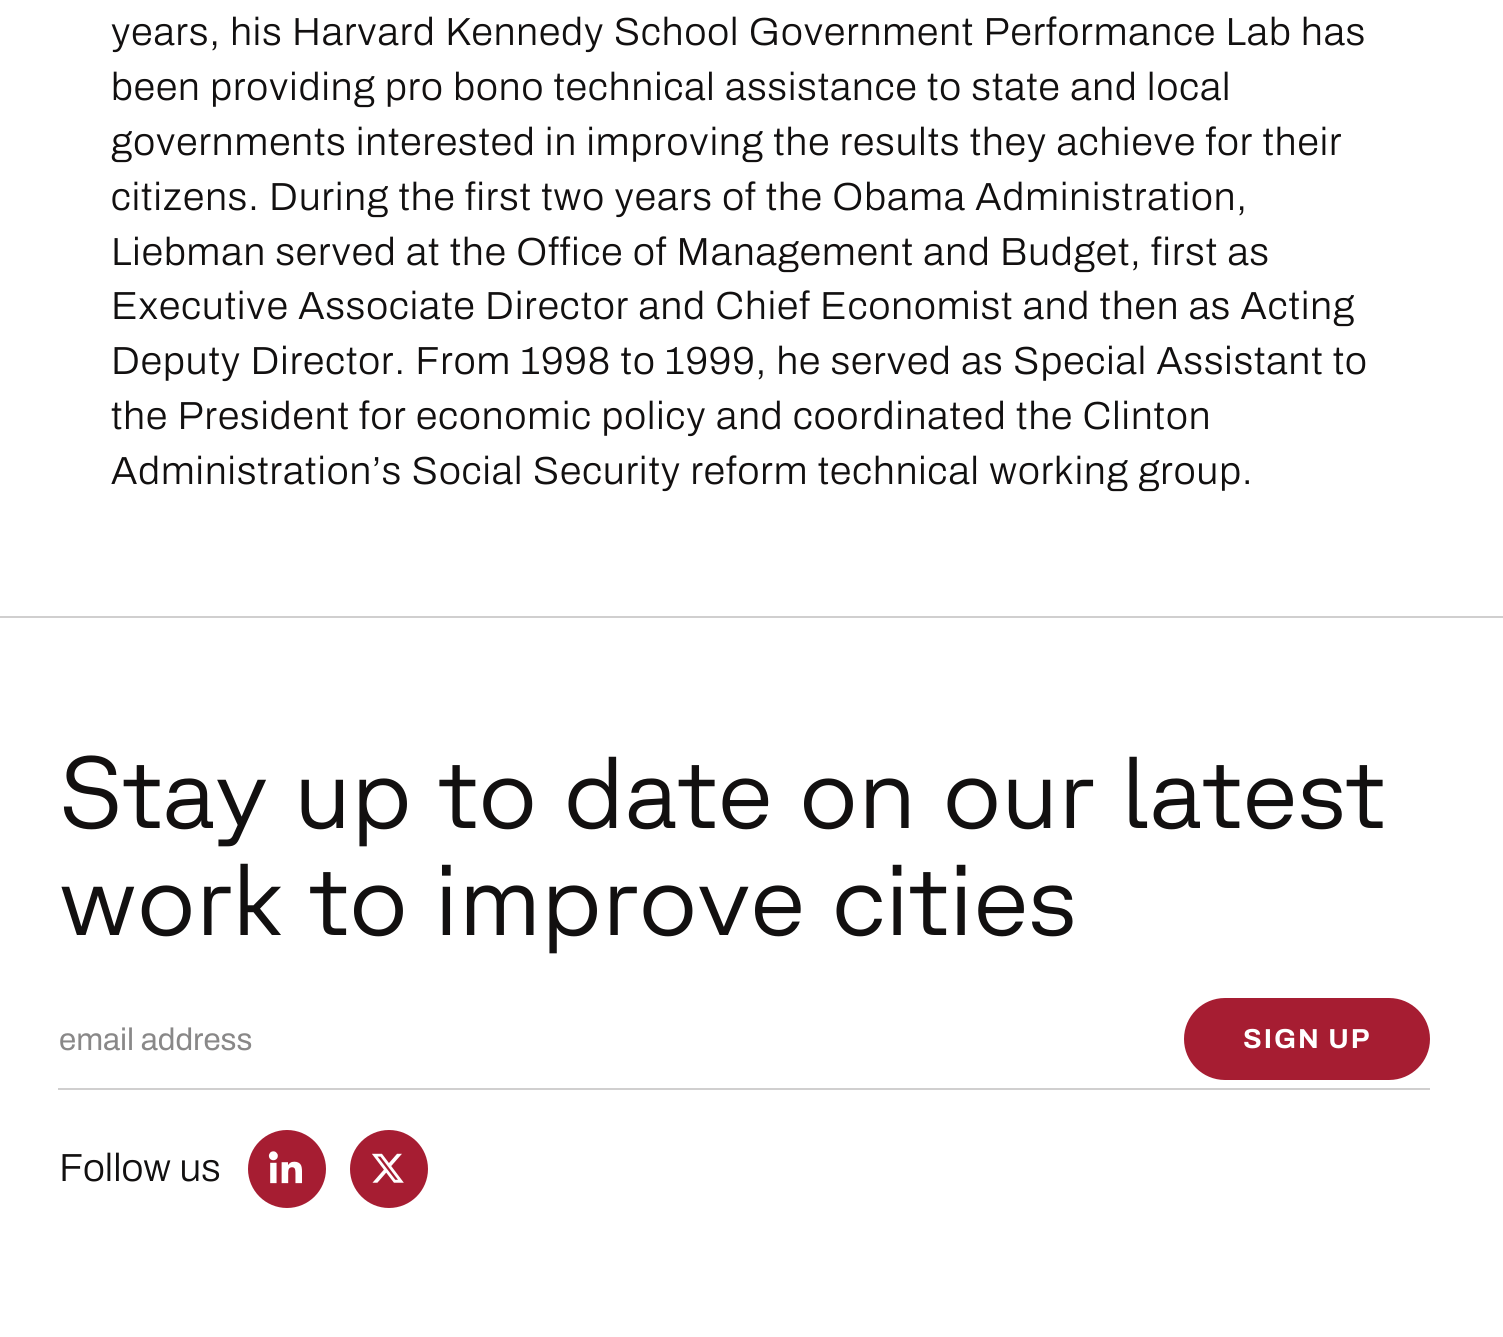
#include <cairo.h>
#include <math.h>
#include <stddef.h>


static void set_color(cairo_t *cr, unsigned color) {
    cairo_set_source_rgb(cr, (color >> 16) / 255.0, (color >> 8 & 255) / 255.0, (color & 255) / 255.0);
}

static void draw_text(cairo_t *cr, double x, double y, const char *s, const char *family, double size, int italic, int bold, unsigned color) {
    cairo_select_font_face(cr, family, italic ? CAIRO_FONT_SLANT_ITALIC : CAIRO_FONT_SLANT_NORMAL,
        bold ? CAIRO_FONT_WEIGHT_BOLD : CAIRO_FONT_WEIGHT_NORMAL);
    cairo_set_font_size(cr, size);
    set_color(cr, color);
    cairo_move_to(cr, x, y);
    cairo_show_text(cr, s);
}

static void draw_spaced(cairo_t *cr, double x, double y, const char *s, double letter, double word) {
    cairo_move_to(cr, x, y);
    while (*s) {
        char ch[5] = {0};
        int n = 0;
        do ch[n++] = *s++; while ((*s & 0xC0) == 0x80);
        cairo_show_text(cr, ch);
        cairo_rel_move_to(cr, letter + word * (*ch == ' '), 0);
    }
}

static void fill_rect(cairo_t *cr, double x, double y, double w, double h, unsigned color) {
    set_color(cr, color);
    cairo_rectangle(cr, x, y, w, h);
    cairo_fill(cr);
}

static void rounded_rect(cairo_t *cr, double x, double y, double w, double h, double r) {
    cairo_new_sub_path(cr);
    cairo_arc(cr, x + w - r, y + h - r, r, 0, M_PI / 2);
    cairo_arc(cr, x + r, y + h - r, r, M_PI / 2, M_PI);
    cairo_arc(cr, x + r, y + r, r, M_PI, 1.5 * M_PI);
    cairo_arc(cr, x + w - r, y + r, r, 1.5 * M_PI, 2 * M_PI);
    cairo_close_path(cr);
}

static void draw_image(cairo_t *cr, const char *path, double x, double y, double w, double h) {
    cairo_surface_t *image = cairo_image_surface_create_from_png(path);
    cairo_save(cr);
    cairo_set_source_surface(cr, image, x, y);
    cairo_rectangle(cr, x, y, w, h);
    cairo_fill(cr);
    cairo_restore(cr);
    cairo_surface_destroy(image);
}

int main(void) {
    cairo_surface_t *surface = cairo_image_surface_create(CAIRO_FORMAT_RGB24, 1503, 1337);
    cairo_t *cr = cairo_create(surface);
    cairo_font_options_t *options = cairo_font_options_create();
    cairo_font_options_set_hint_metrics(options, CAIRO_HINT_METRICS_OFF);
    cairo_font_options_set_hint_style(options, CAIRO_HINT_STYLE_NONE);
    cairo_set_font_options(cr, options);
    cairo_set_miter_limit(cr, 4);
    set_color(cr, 0xFFFFFF);
    cairo_paint(cr);
    cairo_select_font_face(cr, "Archivo SemiBold", CAIRO_FONT_SLANT_NORMAL, CAIRO_FONT_WEIGHT_NORMAL);
    cairo_set_font_size(cr, 39.2);
    set_color(cr, 0x121010);
    draw_spaced(cr, 111, 45, "years, his Harvard Kennedy School Government Performance Lab has", 0.98, 0);
    draw_spaced(cr, 111, 100, "been providing pro bono technical assistance to state and local", 0.98, 0);
    draw_spaced(cr, 111, 155, "governments interested in improving the results they achieve for their", 0.98, 0);
    draw_spaced(cr, 111, 210, "citizens. During the first two years of the Obama Administration,", 0.98, 0);
    draw_spaced(cr, 111, 265, "Liebman served at the Office of Management and Budget, first as", 0.98, 0);
    draw_spaced(cr, 111, 319, "Executive Associate Director and Chief Economist and then as Acting", 0.98, 0);
    draw_spaced(cr, 111, 374, "Deputy Director. From 1998 to 1999, he served as Special Assistant to", 0.98, 0);
    draw_spaced(cr, 111, 429, "the President for economic policy and coordinated the Clinton", 0.98, 0);
    draw_spaced(cr, 111, 484, "Administration’s Social Security reform technical working group.", 0.98, 0);
    fill_rect(cr, 0, 616, 1503, 2, 0xD0CFCF);
    draw_text(cr, 59, 828, "Stay up to date on our latest", "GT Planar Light", 101.8, 0, 0, 0x121010);
    draw_text(cr, 59, 935, "work to improve cities", "GT Planar Light", 101.8, 0, 0, 0x121010);
    fill_rect(cr, 58, 1088, 1372, 2, 0xD0CFCF);
    draw_text(cr, 59, 1050, "email address", "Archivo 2 SemiBold", 31.25, 0, 0, 0x898888);
    set_color(cr, 0xA61D32);
    rounded_rect(cr, 1185, 999, 244, 80, 40);
    cairo_fill_preserve(cr);
    cairo_stroke(cr);
    cairo_select_font_face(cr, "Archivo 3 SemiBold", CAIRO_FONT_SLANT_NORMAL, CAIRO_FONT_WEIGHT_NORMAL);
    cairo_set_font_size(cr, 27.5);
    set_color(cr, 0xFFFFFF);
    draw_spaced(cr, 1243, 1048, "SIGN UP", 2, 0);
    draw_text(cr, 59, 1181, "Follow us", "Archivo SemiBold", 39.2, 0, 0, 0x121010);
    set_color(cr, 0xA61D32);
    cairo_new_path(cr);
    cairo_arc(cr, 287, 1169, 39, 0, 2 * M_PI);
    cairo_fill(cr);
    draw_image(cr, "assets/img1.png", 268, 1151, 34, 33);
    cairo_arc(cr, 389, 1169, 39, 0, 2 * M_PI);
    cairo_fill(cr);
    draw_image(cr, "assets/img2.png", 372, 1153, 32, 30);
    cairo_surface_write_to_png(surface, "output.png");
    cairo_font_options_destroy(options);
    cairo_destroy(cr);
    cairo_surface_destroy(surface);
    return 0;
}
